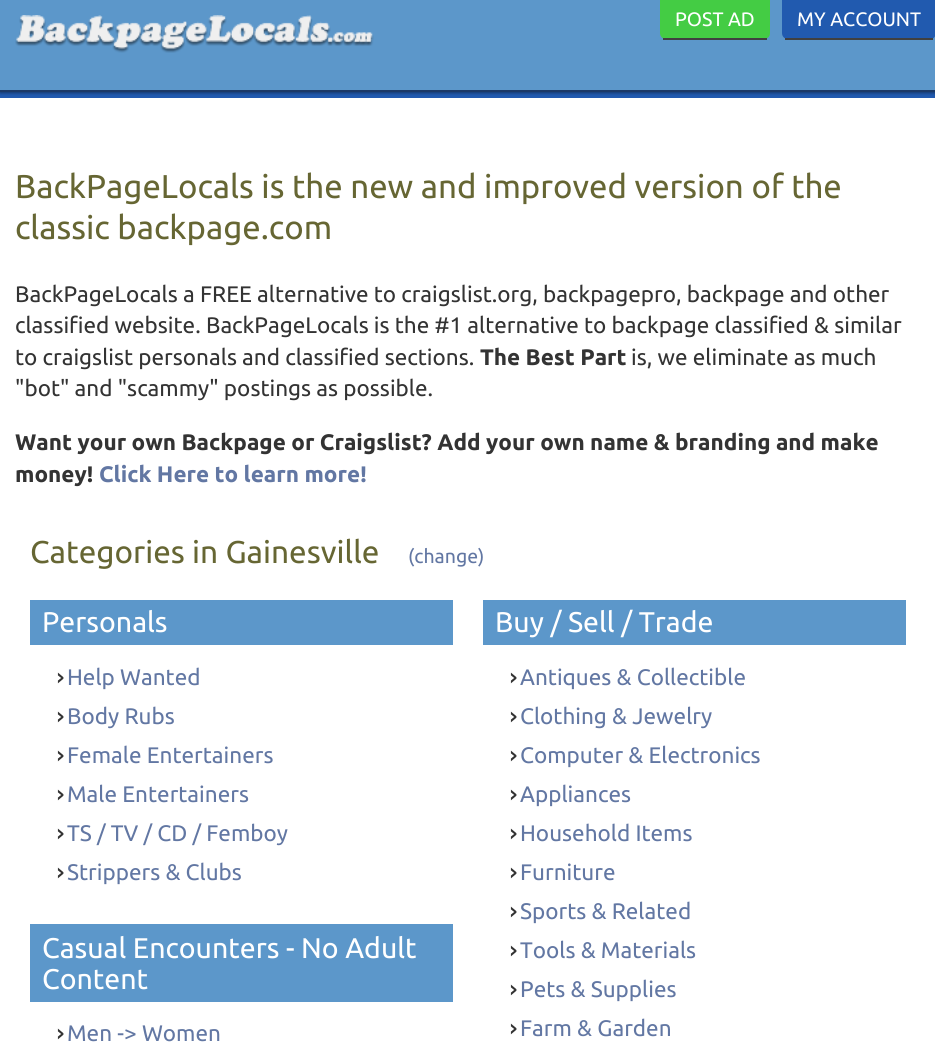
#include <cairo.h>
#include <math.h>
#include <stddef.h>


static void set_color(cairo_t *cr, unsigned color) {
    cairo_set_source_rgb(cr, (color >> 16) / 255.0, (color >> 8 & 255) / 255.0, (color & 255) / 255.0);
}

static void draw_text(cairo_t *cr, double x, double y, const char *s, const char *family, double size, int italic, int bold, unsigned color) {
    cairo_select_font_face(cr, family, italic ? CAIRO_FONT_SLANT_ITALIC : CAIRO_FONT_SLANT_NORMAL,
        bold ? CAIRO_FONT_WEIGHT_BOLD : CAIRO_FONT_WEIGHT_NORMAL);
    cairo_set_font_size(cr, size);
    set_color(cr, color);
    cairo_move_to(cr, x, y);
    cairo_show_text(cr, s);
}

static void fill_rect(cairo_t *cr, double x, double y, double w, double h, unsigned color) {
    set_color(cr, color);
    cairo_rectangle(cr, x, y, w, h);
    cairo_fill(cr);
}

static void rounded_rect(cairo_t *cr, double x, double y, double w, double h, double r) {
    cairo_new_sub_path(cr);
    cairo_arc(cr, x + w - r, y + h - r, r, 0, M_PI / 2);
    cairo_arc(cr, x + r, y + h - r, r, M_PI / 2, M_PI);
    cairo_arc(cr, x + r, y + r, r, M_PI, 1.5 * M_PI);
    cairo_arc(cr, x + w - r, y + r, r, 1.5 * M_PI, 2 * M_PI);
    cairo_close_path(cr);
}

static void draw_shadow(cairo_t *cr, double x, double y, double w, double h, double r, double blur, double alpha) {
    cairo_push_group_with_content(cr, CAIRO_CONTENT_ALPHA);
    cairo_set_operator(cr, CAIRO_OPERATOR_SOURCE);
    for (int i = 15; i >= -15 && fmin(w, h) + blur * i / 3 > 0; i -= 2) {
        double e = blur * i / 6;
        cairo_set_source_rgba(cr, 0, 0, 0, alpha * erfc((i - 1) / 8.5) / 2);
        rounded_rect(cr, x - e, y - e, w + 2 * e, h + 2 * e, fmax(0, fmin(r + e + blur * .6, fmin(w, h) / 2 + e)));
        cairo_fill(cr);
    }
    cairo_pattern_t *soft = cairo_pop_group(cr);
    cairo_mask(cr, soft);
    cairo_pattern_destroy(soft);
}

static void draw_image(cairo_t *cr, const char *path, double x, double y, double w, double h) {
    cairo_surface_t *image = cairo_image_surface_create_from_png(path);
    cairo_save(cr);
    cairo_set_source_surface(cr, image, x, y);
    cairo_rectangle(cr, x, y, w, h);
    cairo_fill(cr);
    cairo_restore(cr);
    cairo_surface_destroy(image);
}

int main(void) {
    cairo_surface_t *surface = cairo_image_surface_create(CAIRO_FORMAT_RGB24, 935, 1045);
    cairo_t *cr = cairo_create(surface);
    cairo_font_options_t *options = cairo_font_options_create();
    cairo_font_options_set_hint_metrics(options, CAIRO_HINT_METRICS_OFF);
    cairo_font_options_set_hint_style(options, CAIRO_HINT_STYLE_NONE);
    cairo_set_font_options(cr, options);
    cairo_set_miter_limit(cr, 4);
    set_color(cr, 0xFFFFFF);
    cairo_paint(cr);
    fill_rect(cr, 0, 92, 935, 6, 0x215AAF);
    set_color(cr, 0x000000);
    draw_shadow(cr, 0, 2, 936, 91, 0, 1.5, 0.4);
    fill_rect(cr, 0, 0, 935, 90, 0x5C97CA);
    fill_rect(cr, 0, 90, 935, 2, 0x1B3967);
    draw_image(cr, "assets/img1.png", 15, 15, 359, 38);
    set_color(cr, 0x44CC44);
    cairo_new_path(cr);
    cairo_move_to(cr, 660, 0);
    cairo_line_to(cr, 770, 0);
    cairo_line_to(cr, 770, 33);
    cairo_curve_to(cr, 770, 36.5, 767.5, 39, 764, 39);
    cairo_line_to(cr, 666, 39);
    cairo_curve_to(cr, 662.5, 39, 660, 36.5, 660, 33);
    cairo_close_path(cr);
    cairo_fill(cr);
    fill_rect(cr, 663, 38, 104, 2, 0x404040);
    draw_text(cr, 675, 26, "POST AD", "Ubuntu", 19.5, 0, 0, 0xFFFFFF);
    set_color(cr, 0x215AAF);
    cairo_new_path(cr);
    cairo_move_to(cr, 782, 0);
    cairo_line_to(cr, 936, 0);
    cairo_line_to(cr, 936, 33);
    cairo_curve_to(cr, 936, 36.5, 933.5, 39, 930, 39);
    cairo_line_to(cr, 788, 39);
    cairo_curve_to(cr, 784.5, 39, 782, 36.5, 782, 33);
    cairo_close_path(cr);
    cairo_fill(cr);
    fill_rect(cr, 785, 38, 148, 2, 0x404040);
    draw_text(cr, 797, 26, "MY ACCOUNT", "Ubuntu", 19.5, 0, 0, 0xFFFFFF);
    draw_text(cr, 15, 198, "BackPageLocals is the new and improved version of the", "Ubuntu", 33, 0, 0, 0x666633);
    draw_text(cr, 15, 239, "classic backpage.com", "Ubuntu", 33, 0, 0, 0x666633);
    draw_text(cr, 15, 302, "BackPageLocals a FREE alternative to craigslist.org, backpagepro, backpage and other", "Ubuntu", 22.5, 0, 0, 0x333333);
    draw_text(cr, 15, 333, "classified website. BackPageLocals is the #1 alternative to backpage classified & similar", "Ubuntu", 22.5, 0, 0, 0x333333);
    draw_text(cr, 15, 365, "to craigslist personals and classified sections.", "Ubuntu", 22.5, 0, 0, 0x333333);
    draw_text(cr, 480, 365, "The Best Part", "Ubuntu", 22.5, 0, 1, 0x333333);
    draw_text(cr, 631, 365, "is, we eliminate as much", "Ubuntu", 22.5, 0, 0, 0x333333);
    draw_text(cr, 15, 396, "\"bot\" and \"scammy\" postings as possible.", "Ubuntu", 22.5, 0, 0, 0x333333);
    draw_text(cr, 15, 450, "Want your own Backpage or Craigslist? Add your own name & branding and make", "Ubuntu", 22.5, 0, 1, 0x333333);
    draw_text(cr, 15, 482, "money!", "Ubuntu", 22.5, 0, 1, 0x333333);
    draw_text(cr, 99, 482, "Click Here to learn more!", "Ubuntu", 22.5, 0, 1, 0x6277A3);
    draw_text(cr, 30, 563, "Categories in Gainesville", "Ubuntu", 31.5, 0, 0, 0x666633);
    draw_text(cr, 408, 563, "(change)", "Ubuntu", 19.5, 0, 0, 0x6277A3);
    fill_rect(cr, 30, 600, 423, 45, 0x5C97CA);
    draw_text(cr, 42, 632, "Personals", "Ubuntu", 28.5, 0, 0, 0xFFFFFF);
    draw_text(cr, 53, 685, "›", "DejaVu Sans Mono", 24, 0, 1, 0x333333);
    draw_text(cr, 67, 685, "Help Wanted", "Ubuntu", 22.5, 0, 0, 0x6277A3);
    draw_text(cr, 53, 724, "›", "DejaVu Sans Mono", 24, 0, 1, 0x333333);
    draw_text(cr, 67, 724, "Body Rubs", "Ubuntu", 22.5, 0, 0, 0x6277A3);
    draw_text(cr, 53, 763, "›", "DejaVu Sans Mono", 24, 0, 1, 0x333333);
    draw_text(cr, 67, 763, "Female Entertainers", "Ubuntu", 22.5, 0, 0, 0x6277A3);
    draw_text(cr, 53, 802, "›", "DejaVu Sans Mono", 24, 0, 1, 0x333333);
    draw_text(cr, 67, 802, "Male Entertainers", "Ubuntu", 22.5, 0, 0, 0x6277A3);
    draw_text(cr, 53, 841, "›", "DejaVu Sans Mono", 24, 0, 1, 0x333333);
    draw_text(cr, 67, 841, "TS / TV / CD / Femboy", "Ubuntu", 22.5, 0, 0, 0x6277A3);
    draw_text(cr, 53, 880, "›", "DejaVu Sans Mono", 24, 0, 1, 0x333333);
    draw_text(cr, 67, 880, "Strippers & Clubs", "Ubuntu", 22.5, 0, 0, 0x6277A3);
    fill_rect(cr, 30, 924, 423, 78, 0x5C97CA);
    draw_text(cr, 42, 958, "Casual Encounters - No Adult", "Ubuntu", 28.5, 0, 0, 0xFFFFFF);
    draw_text(cr, 42, 989, "Content", "Ubuntu", 28.5, 0, 0, 0xFFFFFF);
    draw_text(cr, 53, 1041, "›", "DejaVu Sans Mono", 24, 0, 1, 0x333333);
    draw_text(cr, 67, 1041, "Men -> Women", "Ubuntu", 22.5, 0, 0, 0x6277A3);
    fill_rect(cr, 483, 600, 423, 45, 0x5C97CA);
    draw_text(cr, 495, 632, "Buy / Sell / Trade", "Ubuntu", 28.5, 0, 0, 0xFFFFFF);
    draw_text(cr, 506, 685, "›", "DejaVu Sans Mono", 24, 0, 1, 0x333333);
    draw_text(cr, 520, 685, "Antiques & Collectible", "Ubuntu", 22.5, 0, 0, 0x6277A3);
    draw_text(cr, 506, 724, "›", "DejaVu Sans Mono", 24, 0, 1, 0x333333);
    draw_text(cr, 520, 724, "Clothing & Jewelry", "Ubuntu", 22.5, 0, 0, 0x6277A3);
    draw_text(cr, 506, 763, "›", "DejaVu Sans Mono", 24, 0, 1, 0x333333);
    draw_text(cr, 520, 763, "Computer & Electronics", "Ubuntu", 22.5, 0, 0, 0x6277A3);
    draw_text(cr, 506, 802, "›", "DejaVu Sans Mono", 24, 0, 1, 0x333333);
    draw_text(cr, 520, 802, "Appliances", "Ubuntu", 22.5, 0, 0, 0x6277A3);
    draw_text(cr, 506, 841, "›", "DejaVu Sans Mono", 24, 0, 1, 0x333333);
    draw_text(cr, 520, 841, "Household Items", "Ubuntu", 22.5, 0, 0, 0x6277A3);
    draw_text(cr, 506, 880, "›", "DejaVu Sans Mono", 24, 0, 1, 0x333333);
    draw_text(cr, 520, 880, "Furniture", "Ubuntu", 22.5, 0, 0, 0x6277A3);
    draw_text(cr, 506, 919, "›", "DejaVu Sans Mono", 24, 0, 1, 0x333333);
    draw_text(cr, 520, 919, "Sports & Related", "Ubuntu", 22.5, 0, 0, 0x6277A3);
    draw_text(cr, 506, 958, "›", "DejaVu Sans Mono", 24, 0, 1, 0x333333);
    draw_text(cr, 520, 958, "Tools & Materials", "Ubuntu", 22.5, 0, 0, 0x6277A3);
    draw_text(cr, 506, 997, "›", "DejaVu Sans Mono", 24, 0, 1, 0x333333);
    draw_text(cr, 520, 997, "Pets & Supplies", "Ubuntu", 22.5, 0, 0, 0x6277A3);
    draw_text(cr, 506, 1036, "›", "DejaVu Sans Mono", 24, 0, 1, 0x333333);
    draw_text(cr, 520, 1036, "Farm & Garden", "Ubuntu", 22.5, 0, 0, 0x6277A3);
    cairo_surface_write_to_png(surface, "output.png");
    cairo_font_options_destroy(options);
    cairo_destroy(cr);
    cairo_surface_destroy(surface);
    return 0;
}
